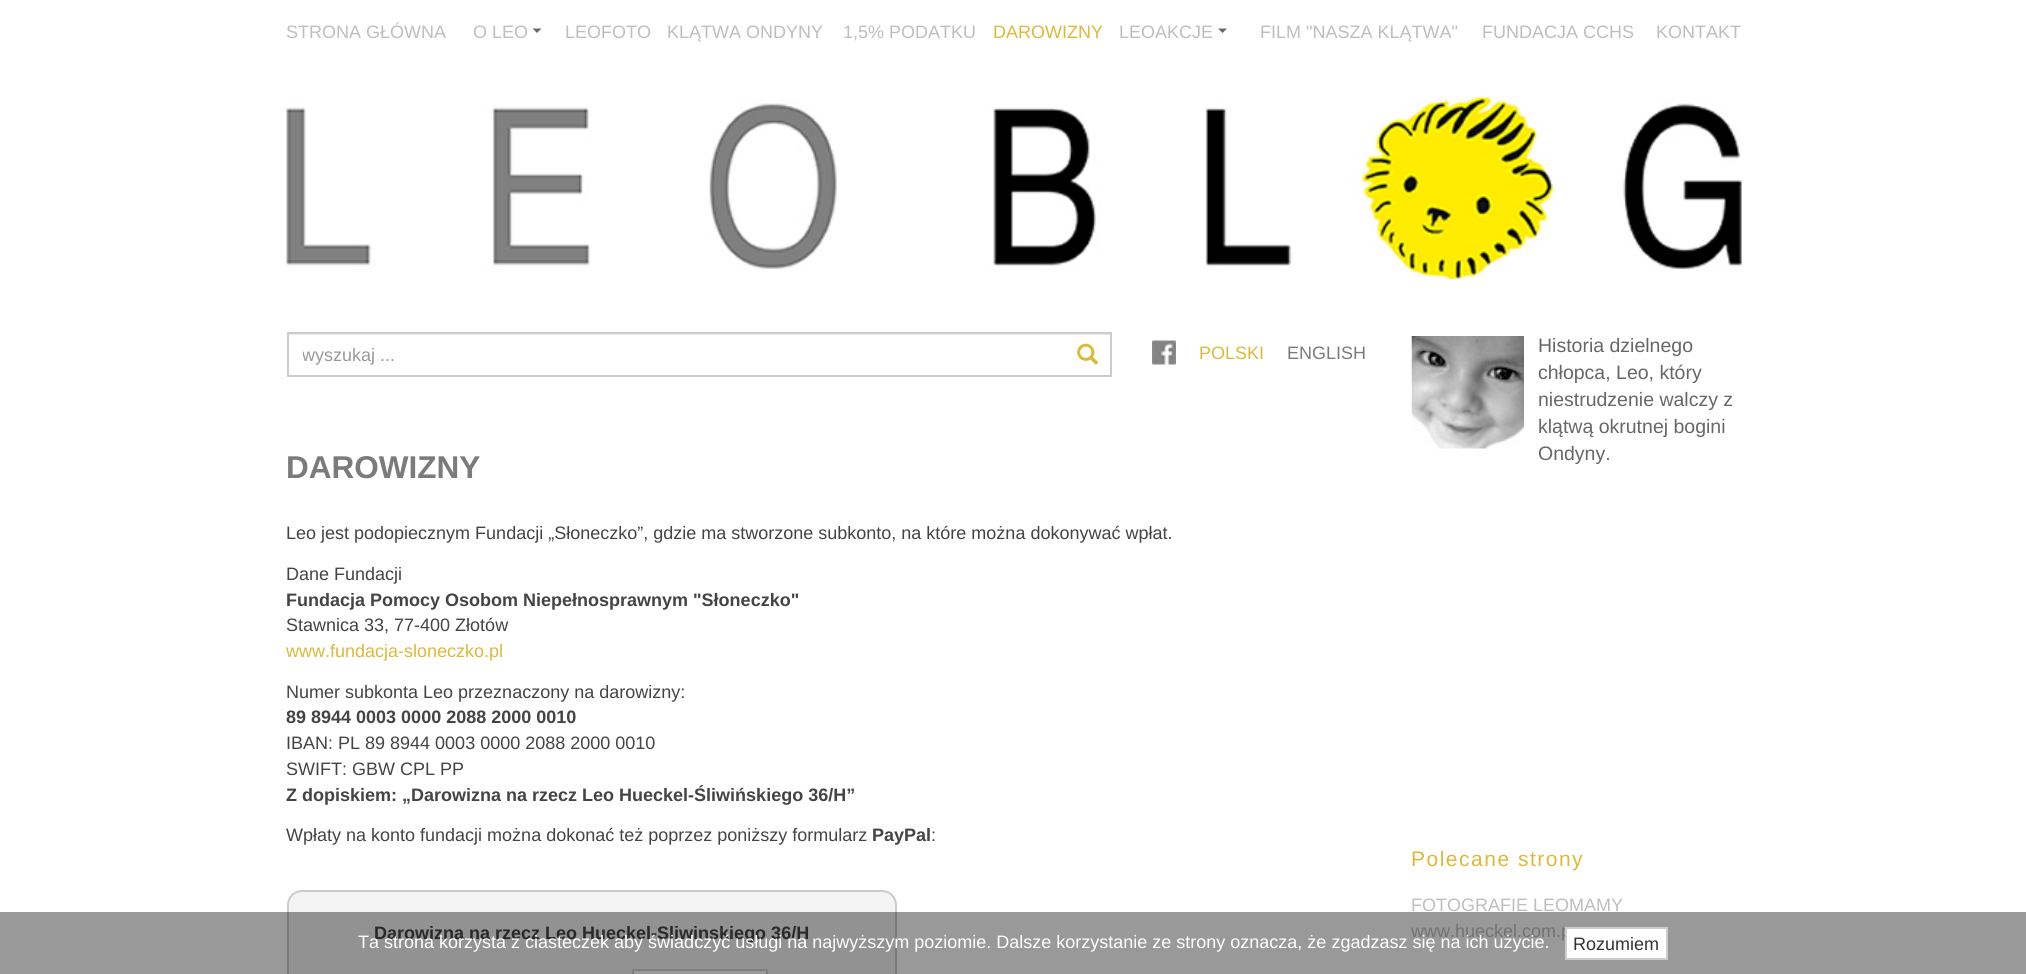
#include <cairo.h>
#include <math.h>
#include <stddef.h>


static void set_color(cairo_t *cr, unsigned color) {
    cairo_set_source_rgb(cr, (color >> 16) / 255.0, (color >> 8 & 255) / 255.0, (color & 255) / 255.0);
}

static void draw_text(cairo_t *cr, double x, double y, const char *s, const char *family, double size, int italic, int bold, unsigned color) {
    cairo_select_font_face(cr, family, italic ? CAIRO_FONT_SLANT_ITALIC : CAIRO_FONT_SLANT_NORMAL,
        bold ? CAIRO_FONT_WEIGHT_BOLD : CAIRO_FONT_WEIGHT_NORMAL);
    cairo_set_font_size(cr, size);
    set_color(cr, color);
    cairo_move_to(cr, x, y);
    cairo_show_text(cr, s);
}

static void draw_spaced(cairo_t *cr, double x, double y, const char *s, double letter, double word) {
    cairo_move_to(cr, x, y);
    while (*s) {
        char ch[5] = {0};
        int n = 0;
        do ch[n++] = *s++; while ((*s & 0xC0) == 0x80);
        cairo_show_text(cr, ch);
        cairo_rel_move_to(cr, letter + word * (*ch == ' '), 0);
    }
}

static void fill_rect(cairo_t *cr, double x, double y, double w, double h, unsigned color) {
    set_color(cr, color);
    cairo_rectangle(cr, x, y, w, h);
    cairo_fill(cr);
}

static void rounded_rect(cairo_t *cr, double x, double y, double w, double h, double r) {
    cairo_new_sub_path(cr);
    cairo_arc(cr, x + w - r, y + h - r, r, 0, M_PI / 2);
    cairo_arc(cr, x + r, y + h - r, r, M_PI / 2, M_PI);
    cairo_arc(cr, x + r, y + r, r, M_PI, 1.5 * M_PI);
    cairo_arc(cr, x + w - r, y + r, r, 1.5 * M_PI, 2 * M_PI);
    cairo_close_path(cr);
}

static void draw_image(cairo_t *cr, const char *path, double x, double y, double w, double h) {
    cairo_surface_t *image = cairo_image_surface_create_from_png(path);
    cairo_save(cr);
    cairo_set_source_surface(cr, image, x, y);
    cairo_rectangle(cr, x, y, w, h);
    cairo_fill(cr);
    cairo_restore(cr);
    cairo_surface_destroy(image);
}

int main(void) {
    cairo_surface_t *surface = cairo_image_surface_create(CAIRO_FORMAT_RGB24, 2026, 974);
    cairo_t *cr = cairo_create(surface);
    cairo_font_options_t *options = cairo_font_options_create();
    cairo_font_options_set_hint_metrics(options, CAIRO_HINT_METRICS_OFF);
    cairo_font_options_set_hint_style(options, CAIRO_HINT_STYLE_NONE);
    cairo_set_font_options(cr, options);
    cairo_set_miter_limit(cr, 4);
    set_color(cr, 0xFFFFFF);
    cairo_paint(cr);
    draw_text(cr, 286, 38, "STRONA GŁÓWNA", "Liberation Sans", 18, 0, 0, 0xBEBEBE);
    draw_text(cr, 473, 38, "O LEO", "Liberation Sans", 18, 0, 0, 0xBEBEBE);
    set_color(cr, 0x676767);
    cairo_new_path(cr);
    cairo_move_to(cr, 532.5, 28.5);
    cairo_line_to(cr, 541.5, 28.5);
    cairo_line_to(cr, 537, 33);
    cairo_close_path(cr);
    cairo_fill(cr);
    draw_text(cr, 565, 38, "LEOFOTO", "Liberation Sans", 18, 0, 0, 0xBEBEBE);
    draw_text(cr, 667, 38, "KLĄTWA ONDYNY", "Liberation Sans", 18, 0, 0, 0xBEBEBE);
    draw_text(cr, 843, 38, "1,5% PODATKU", "Liberation Sans", 18, 0, 0, 0xBEBEBE);
    draw_text(cr, 993, 38, "DAROWIZNY", "Liberation Sans", 18, 0, 0, 0xDCB93A);
    draw_text(cr, 1119, 38, "LEOAKCJE", "Liberation Sans", 18, 0, 0, 0xBEBEBE);
    set_color(cr, 0x676767);
    cairo_new_path(cr);
    cairo_move_to(cr, 1218, 28.5);
    cairo_line_to(cr, 1227, 28.5);
    cairo_line_to(cr, 1222.5, 33);
    cairo_close_path(cr);
    cairo_fill(cr);
    draw_text(cr, 1260, 38, "FILM \"NASZA KLĄTWA\"", "Liberation Sans", 18, 0, 0, 0xBEBEBE);
    draw_text(cr, 1482, 38, "FUNDACJA CCHS", "Liberation Sans", 18, 0, 0, 0xBEBEBE);
    draw_text(cr, 1656, 38, "KONTAKT", "Liberation Sans", 18, 0, 0, 0xBEBEBE);
    draw_image(cr, "assets/img1.png", 286, 97, 1456, 182);
    fill_rect(cr, 288, 334, 822, 1, 0xECECEC);
    cairo_rectangle(cr, 288, 333, 823, 43);
    set_color(cr, 0xCCCCCC);
    cairo_stroke(cr);
    cairo_save(cr);
    cairo_rectangle(cr, 303, 344, 792, 21);
    cairo_clip(cr);
    draw_text(cr, 302, 361, "wyszukaj ...", "Liberation Sans", 18, 0, 0, 0x999999);
    cairo_restore(cr);
    draw_image(cr, "assets/img2.png", 1077, 343, 22, 22);
    draw_image(cr, "assets/img3.png", 1152, 340, 24, 25);
    draw_text(cr, 1199, 359, "POLSKI", "Liberation Sans", 18, 0, 0, 0xDCB93A);
    draw_text(cr, 1287, 359, "ENGLISH", "Liberation Sans", 18, 0, 0, 0x7B7B7B);
    draw_text(cr, 286, 478, "DAROWIZNY", "Liberation Sans", 31.5, 0, 1, 0x7B7B7B);
    draw_text(cr, 286, 539, "Leo jest podopiecznym Fundacji „Słoneczko”, gdzie ma stworzone subkonto, na które można dokonywać wpłat.", "Liberation Sans", 18, 0, 0, 0x444444);
    draw_text(cr, 286, 580, "Dane Fundacji", "Liberation Sans", 18, 0, 0, 0x444444);
    draw_text(cr, 286, 606, "Fundacja Pomocy Osobom Niepełnosprawnym \"Słoneczko\"", "Liberation Sans", 18, 0, 1, 0x444444);
    draw_text(cr, 286, 631, "Stawnica 33, 77-400 Złotów", "Liberation Sans", 18, 0, 0, 0x444444);
    draw_text(cr, 286, 657, "www.fundacja-sloneczko.pl", "Liberation Sans", 18, 0, 0, 0xDCB93A);
    draw_text(cr, 286, 698, "Numer subkonta Leo przeznaczony na darowizny:", "Liberation Sans", 18, 0, 0, 0x444444);
    draw_text(cr, 286, 723, "89 8944 0003 0000 2088 2000 0010", "Liberation Sans", 18, 0, 1, 0x444444);
    draw_text(cr, 286, 749, "IBAN: PL 89 8944 0003 0000 2088 2000 0010", "Liberation Sans", 18, 0, 0, 0x444444);
    draw_text(cr, 286, 775, "SWIFT: GBW CPL PP", "Liberation Sans", 18, 0, 0, 0x444444);
    draw_text(cr, 286, 801, "Z dopiskiem: „Darowizna na rzecz Leo Hueckel-Śliwińskiego 36/H”", "Liberation Sans", 18, 0, 1, 0x444444);
    draw_text(cr, 286, 841, "Wpłaty na konto fundacji można dokonać też poprzez poniższy formularz", "Liberation Sans", 18, 0, 0, 0x444444);
    draw_text(cr, 872, 841, "PayPal", "Liberation Sans", 18, 0, 1, 0x444444);
    draw_text(cr, 931, 841, ":", "Liberation Sans", 18, 0, 0, 0x444444);
    set_color(cr, 0xF4F4F4);
    rounded_rect(cr, 288, 891, 608, 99, 14);
    cairo_fill_preserve(cr);
    set_color(cr, 0xCCCCCC);
    cairo_stroke(cr);
    draw_text(cr, 374, 939, "Darowizna na rzecz Leo Hueckel-Sliwinskiego 36/H", "Liberation Sans", 18, 0, 1, 0x444444);
    set_color(cr, 0xFFFFFF);
    cairo_rectangle(cr, 633, 970, 134, 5);
    cairo_fill_preserve(cr);
    set_color(cr, 0xD4D4D4);
    cairo_stroke(cr);
    draw_image(cr, "assets/img4.png", 1411, 336, 113, 113);
    draw_text(cr, 1538, 352, "Historia dzielnego", "Liberation Sans", 19.5, 0, 0, 0x676767);
    draw_text(cr, 1538, 379, "chłopca, Leo, który", "Liberation Sans", 19.5, 0, 0, 0x676767);
    draw_text(cr, 1538, 406, "niestrudzenie walczy z", "Liberation Sans", 19.5, 0, 0, 0x676767);
    draw_text(cr, 1538, 433, "klątwą okrutnej bogini", "Liberation Sans", 19.5, 0, 0, 0x676767);
    draw_text(cr, 1538, 460, "Ondyny.", "Liberation Sans", 19.5, 0, 0, 0x676767);
    cairo_set_font_size(cr, 21);
    set_color(cr, 0xDCB93A);
    draw_spaced(cr, 1411, 866, "Polecane strony", 1.5, 0);
    draw_text(cr, 1411, 911, "FOTOGRAFIE LEOMAMY", "Liberation Sans", 18, 0, 0, 0xBEBEBE);
    draw_text(cr, 1411, 937, "www.hueckel.com.p", "Liberation Sans", 18, 0, 0, 0xBEBEBE);
    cairo_set_source_rgba(cr, 0, 0, 0, 0.4);
    cairo_rectangle(cr, 0, 912, 2026, 62);
    cairo_fill(cr);
    draw_text(cr, 358, 948, "Ta strona korzysta z ciasteczek aby świadczyć usługi na najwyższym poziomie. Dalsze korzystanie ze strony oznacza, że zgadzasz się na ich użycie.", "Liberation Sans", 18, 0, 0, 0xFFFFFF);
    cairo_rectangle(cr, 1566, 928, 101, 31);
    cairo_fill_preserve(cr);
    set_color(cr, 0xCCCCCC);
    cairo_stroke(cr);
    draw_text(cr, 1573, 950, "Rozumiem", "Liberation Sans", 18, 0, 0, 0x333333);
    cairo_surface_write_to_png(surface, "output.png");
    cairo_font_options_destroy(options);
    cairo_destroy(cr);
    cairo_surface_destroy(surface);
    return 0;
}
